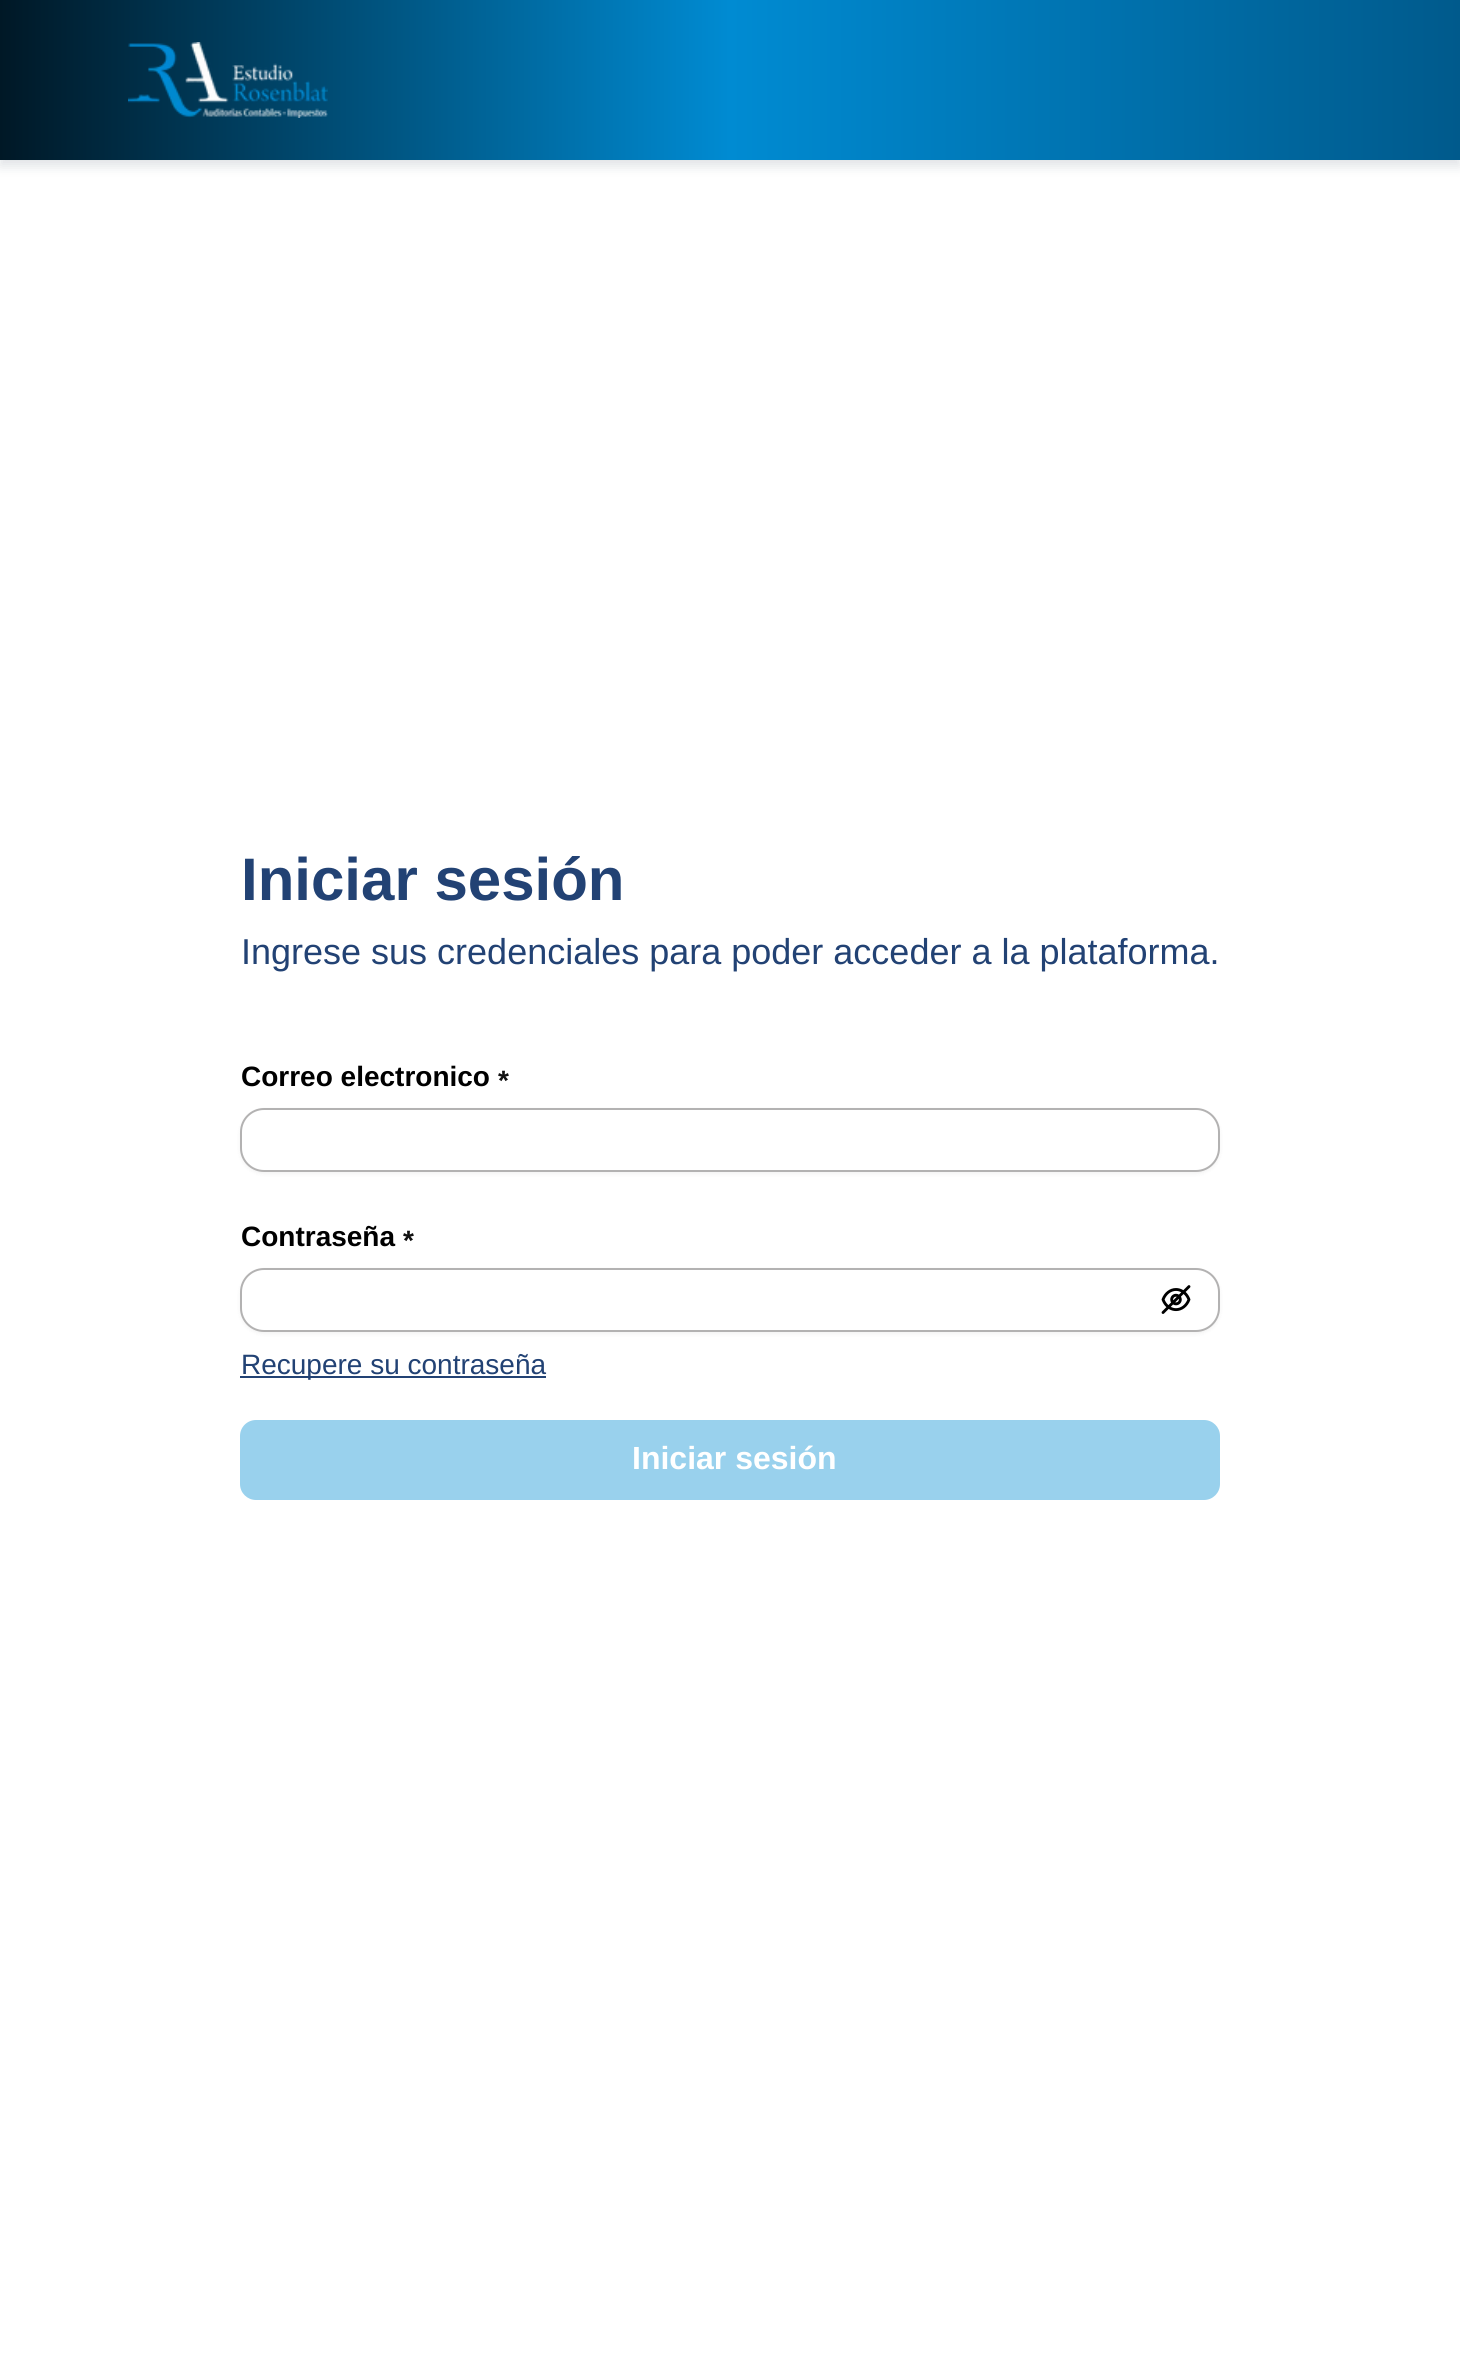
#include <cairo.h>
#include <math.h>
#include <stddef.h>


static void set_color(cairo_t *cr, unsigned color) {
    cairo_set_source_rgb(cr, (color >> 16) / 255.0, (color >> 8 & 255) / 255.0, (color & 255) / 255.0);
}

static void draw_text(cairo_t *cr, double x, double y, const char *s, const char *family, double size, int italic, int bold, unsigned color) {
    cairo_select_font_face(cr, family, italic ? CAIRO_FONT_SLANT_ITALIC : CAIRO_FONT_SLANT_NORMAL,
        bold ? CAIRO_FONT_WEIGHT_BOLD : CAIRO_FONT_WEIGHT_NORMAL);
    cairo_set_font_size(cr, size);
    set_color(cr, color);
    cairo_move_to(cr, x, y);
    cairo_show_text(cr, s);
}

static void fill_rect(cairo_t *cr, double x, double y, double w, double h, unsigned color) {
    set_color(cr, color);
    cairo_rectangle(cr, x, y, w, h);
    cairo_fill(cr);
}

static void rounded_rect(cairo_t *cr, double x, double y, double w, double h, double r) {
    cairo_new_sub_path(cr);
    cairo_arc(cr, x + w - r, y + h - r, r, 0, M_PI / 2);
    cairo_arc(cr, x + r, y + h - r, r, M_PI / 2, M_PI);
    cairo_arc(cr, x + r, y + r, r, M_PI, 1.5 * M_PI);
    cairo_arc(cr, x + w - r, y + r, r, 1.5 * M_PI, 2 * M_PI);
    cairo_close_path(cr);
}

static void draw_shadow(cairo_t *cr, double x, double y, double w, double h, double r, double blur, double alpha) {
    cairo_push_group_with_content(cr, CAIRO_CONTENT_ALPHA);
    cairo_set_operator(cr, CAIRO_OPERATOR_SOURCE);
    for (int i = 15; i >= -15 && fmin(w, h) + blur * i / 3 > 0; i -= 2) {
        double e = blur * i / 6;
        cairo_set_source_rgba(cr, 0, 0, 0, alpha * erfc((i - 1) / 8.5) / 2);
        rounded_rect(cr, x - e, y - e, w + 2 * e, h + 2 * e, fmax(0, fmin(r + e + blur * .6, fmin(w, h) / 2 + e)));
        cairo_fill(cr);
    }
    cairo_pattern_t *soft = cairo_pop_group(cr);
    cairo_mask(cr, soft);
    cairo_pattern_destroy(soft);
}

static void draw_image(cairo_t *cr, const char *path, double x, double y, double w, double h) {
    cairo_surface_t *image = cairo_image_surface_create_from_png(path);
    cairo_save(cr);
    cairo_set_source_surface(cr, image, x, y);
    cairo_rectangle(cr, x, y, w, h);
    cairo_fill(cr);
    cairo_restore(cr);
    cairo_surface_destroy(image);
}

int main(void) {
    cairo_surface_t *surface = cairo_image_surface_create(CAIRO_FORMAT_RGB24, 1460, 2375);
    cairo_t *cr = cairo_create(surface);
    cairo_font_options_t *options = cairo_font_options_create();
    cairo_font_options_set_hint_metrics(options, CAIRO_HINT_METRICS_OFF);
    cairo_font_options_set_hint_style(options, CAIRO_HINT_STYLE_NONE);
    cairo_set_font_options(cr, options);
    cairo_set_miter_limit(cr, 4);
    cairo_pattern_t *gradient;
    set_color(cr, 0xFFFFFF);
    cairo_paint(cr);
    set_color(cr, 0x38485C);
    draw_shadow(cr, 0, 6, 1460, 160, 0, 6, 0.16);
    gradient = cairo_pattern_create_linear(0, 80, 1460, 80);
    cairo_pattern_add_color_stop_rgba(gradient, 0, 0, 0.094, 0.149, 1);
    cairo_pattern_add_color_stop_rgba(gradient, 0.5, 0, 0.545, 0.824, 1);
    cairo_pattern_add_color_stop_rgba(gradient, 1, 0, 0.353, 0.549, 1);
    cairo_set_source(cr, gradient);
    cairo_pattern_destroy(gradient);
    cairo_rectangle(cr, 0, 0, 1460, 160);
    cairo_fill(cr);
    draw_image(cr, "assets/img1.png", 128, 42, 200, 76);
    draw_text(cr, 241, 900, "Iniciar sesión", "Liberation Sans", 60, 0, 1, 0x224274);
    draw_text(cr, 241, 964, "Ingrese sus credenciales para poder acceder a la plataforma.", "Liberation Sans", 36, 0, 0, 0x224274);
    draw_text(cr, 241, 1086, "Correo electronico", "Liberation Sans", 28, 0, 1, 0x000000);
    draw_text(cr, 498, 1090, "*", "Liberation Sans", 28, 0, 1, 0x121212);
    set_color(cr, 0x000000);
    draw_shadow(cr, 240, 1110, 980, 64, 24, 2, 0.05);
    set_color(cr, 0xFFFFFF);
    rounded_rect(cr, 241, 1109, 978, 62, 23);
    cairo_fill_preserve(cr);
    set_color(cr, 0xB3B2B2);
    cairo_stroke(cr);
    draw_text(cr, 241, 1246, "Contraseña", "Liberation Sans", 28, 0, 1, 0x000000);
    draw_text(cr, 403, 1250, "*", "Liberation Sans", 28, 0, 1, 0x121212);
    set_color(cr, 0x000000);
    draw_shadow(cr, 240, 1270, 980, 64, 24, 2, 0.05);
    set_color(cr, 0xFFFFFF);
    rounded_rect(cr, 241, 1269, 978, 62, 23);
    cairo_fill_preserve(cr);
    set_color(cr, 0xB3B2B2);
    cairo_stroke(cr);
    draw_image(cr, "assets/img2.png", 1161, 1285, 30, 29);
    fill_rect(cr, 240, 1376, 306, 2, 0x224274);
    draw_text(cr, 241, 1374, "Recupere su contraseña", "Liberation Sans", 28, 0, 0, 0x224274);
    set_color(cr, 0x99D1ED);
    rounded_rect(cr, 240, 1420, 980, 80, 16);
    cairo_fill(cr);
    draw_text(cr, 632, 1469, "Iniciar sesión", "Liberation Sans", 32, 0, 1, 0xFFFFFF);
    cairo_surface_write_to_png(surface, "output.png");
    cairo_font_options_destroy(options);
    cairo_destroy(cr);
    cairo_surface_destroy(surface);
    return 0;
}
